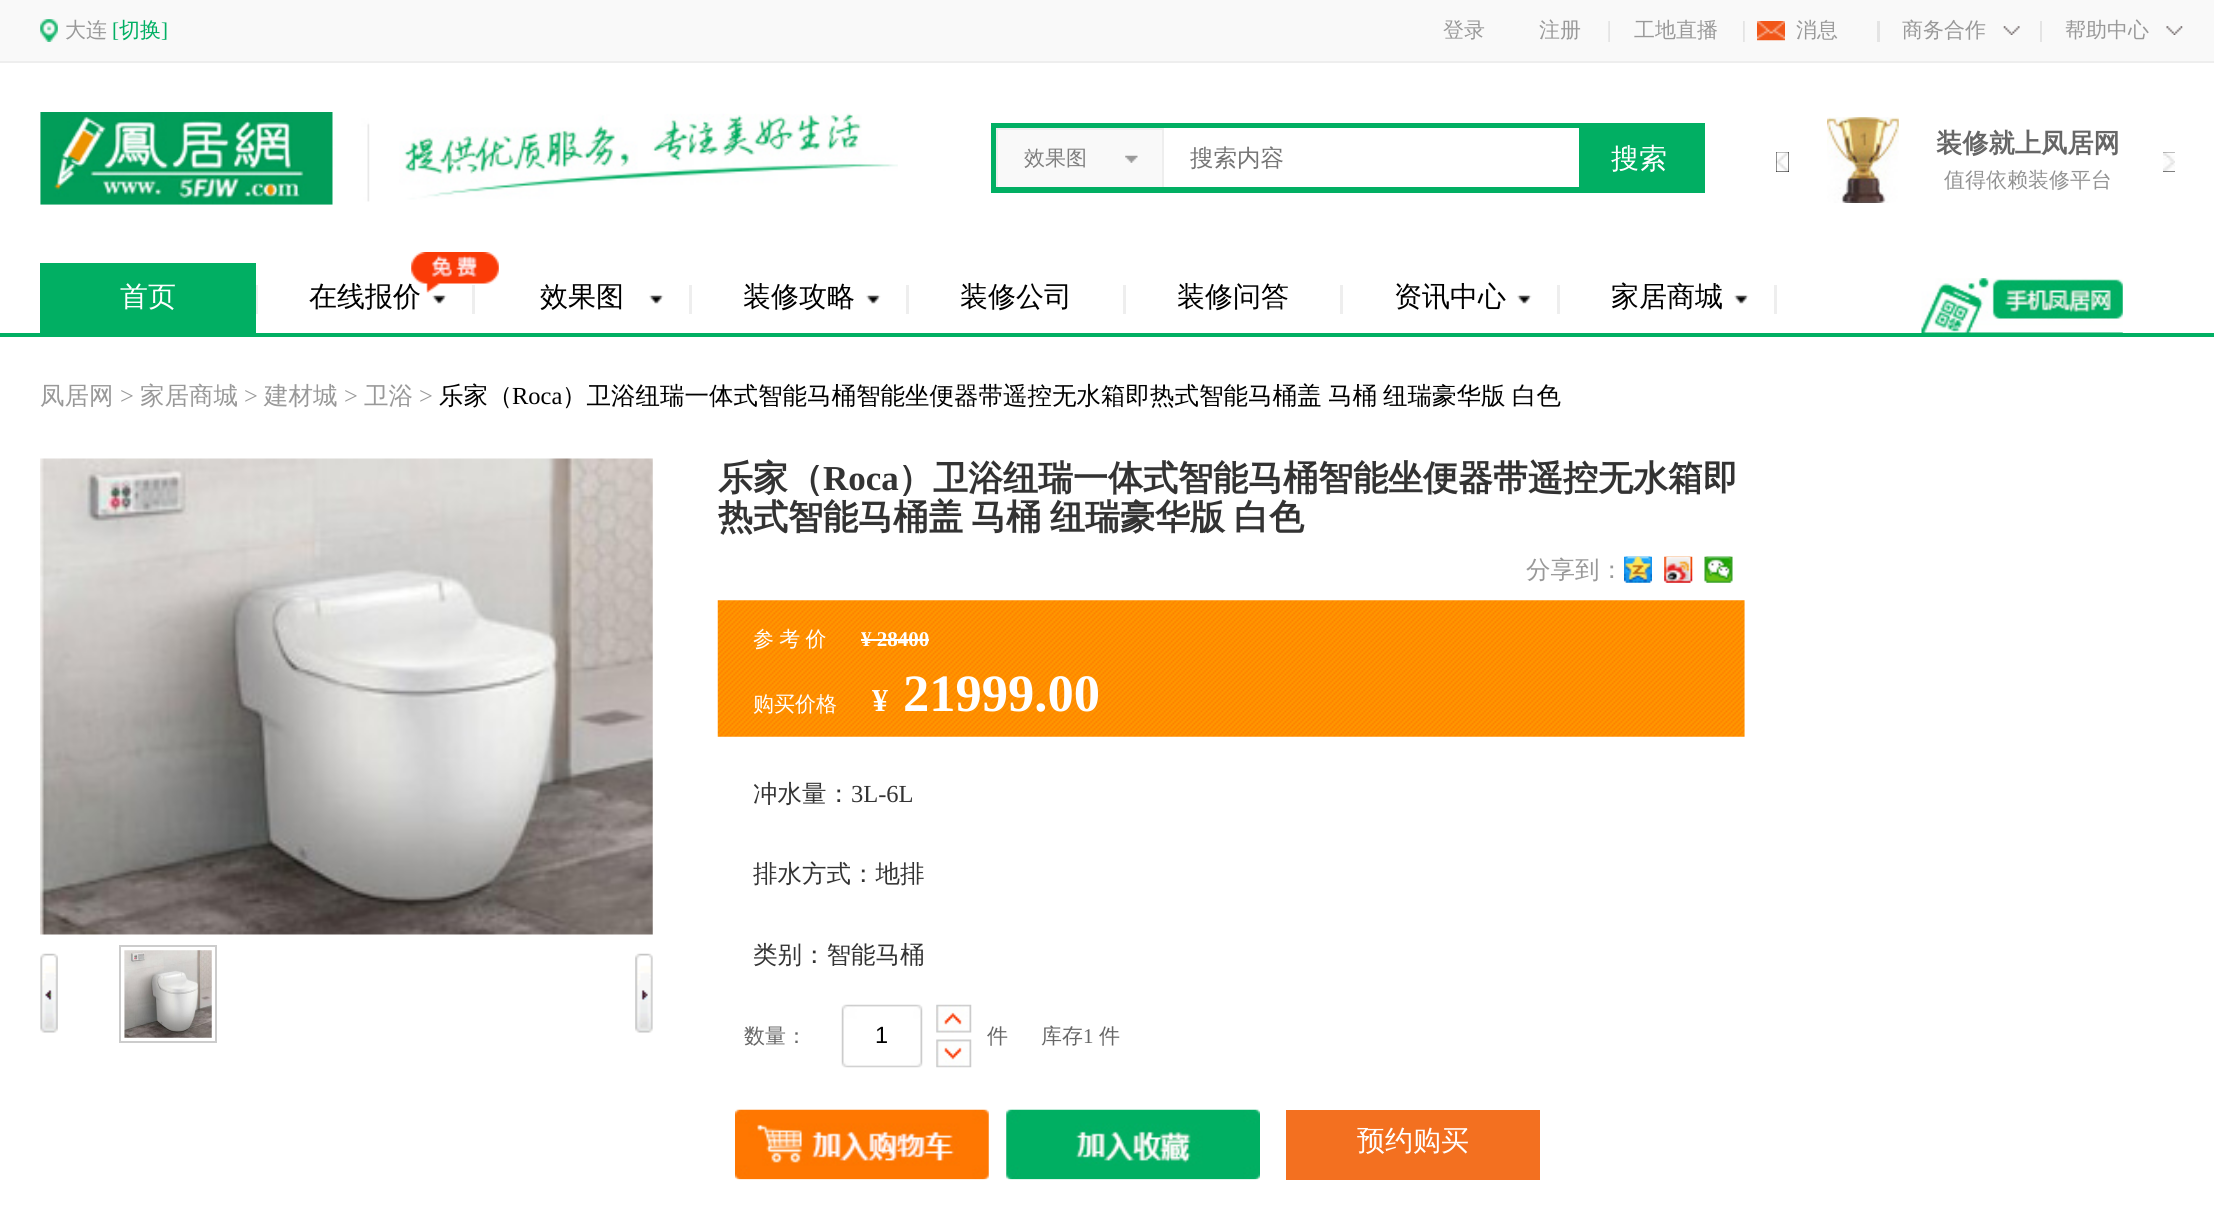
#include <cairo.h>
#include <math.h>
#include <stddef.h>


static void set_color(cairo_t *cr, unsigned color) {
    cairo_set_source_rgb(cr, (color >> 16) / 255.0, (color >> 8 & 255) / 255.0, (color & 255) / 255.0);
}

static void draw_text(cairo_t *cr, double x, double y, const char *s, const char *family, double size, int italic, int bold, unsigned color) {
    cairo_select_font_face(cr, family, italic ? CAIRO_FONT_SLANT_ITALIC : CAIRO_FONT_SLANT_NORMAL,
        bold ? CAIRO_FONT_WEIGHT_BOLD : CAIRO_FONT_WEIGHT_NORMAL);
    cairo_set_font_size(cr, size);
    set_color(cr, color);
    cairo_move_to(cr, x, y);
    cairo_show_text(cr, s);
}

static void draw_spaced(cairo_t *cr, double x, double y, const char *s, double letter, double word) {
    cairo_move_to(cr, x, y);
    while (*s) {
        char ch[5] = {0};
        int n = 0;
        do ch[n++] = *s++; while ((*s & 0xC0) == 0x80);
        cairo_show_text(cr, ch);
        cairo_rel_move_to(cr, letter + word * (*ch == ' '), 0);
    }
}

static void fill_rect(cairo_t *cr, double x, double y, double w, double h, unsigned color) {
    set_color(cr, color);
    cairo_rectangle(cr, x, y, w, h);
    cairo_fill(cr);
}

static void draw_image(cairo_t *cr, const char *path, double x, double y, double w, double h) {
    cairo_surface_t *image = cairo_image_surface_create_from_png(path);
    cairo_save(cr);
    cairo_set_source_surface(cr, image, x, y);
    cairo_rectangle(cr, x, y, w, h);
    cairo_fill(cr);
    cairo_restore(cr);
    cairo_surface_destroy(image);
}

int main(void) {
    cairo_surface_t *surface = cairo_image_surface_create(CAIRO_FORMAT_RGB24, 2214, 1222);
    cairo_t *cr = cairo_create(surface);
    cairo_font_options_t *options = cairo_font_options_create();
    cairo_font_options_set_hint_metrics(options, CAIRO_HINT_METRICS_OFF);
    cairo_font_options_set_hint_style(options, CAIRO_HINT_STYLE_NONE);
    cairo_set_font_options(cr, options);
    cairo_set_miter_limit(cr, 4);
    set_color(cr, 0xFFFFFF);
    cairo_paint(cr);
    fill_rect(cr, 0, 0, 2214, 61, 0xF9F9F9);
    fill_rect(cr, 0, 61, 2214, 2, 0xEEEEEE);
    draw_image(cr, "assets/img1.png", 40, 19, 18, 23);
    draw_text(cr, 65, 37, "大连", "WenQuanYi Zen Hei Medium", 21, 0, 0, 0x999999);
    draw_text(cr, 112, 37, "[", "Liberation Serif", 21, 0, 0, 0x00AF63);
    draw_text(cr, 119, 37, "切换", "WenQuanYi Zen Hei Medium", 21, 0, 0, 0x00AF63);
    draw_text(cr, 161, 37, "]", "Liberation Serif", 21, 0, 0, 0x00AF63);
    draw_text(cr, 1443, 37, "登录", "WenQuanYi Zen Hei Medium", 21, 0, 0, 0x999999);
    draw_text(cr, 1539, 37, "注册", "WenQuanYi Zen Hei Medium", 21, 0, 0, 0x999999);
    draw_image(cr, "assets/img2.png", 1608, 21, 2, 21);
    draw_text(cr, 1634, 37, "工地直播", "WenQuanYi Zen Hei Medium", 21, 0, 0, 0x999999);
    draw_image(cr, "assets/img3.png", 1743, 21, 2, 21);
    draw_image(cr, "assets/img4.png", 1757, 21, 28, 20);
    draw_text(cr, 1796, 37, "消息", "WenQuanYi Zen Hei Medium", 21, 0, 0, 0x999999);
    fill_rect(cr, 1877, 21, 3, 21, 0xE4E4E4);
    draw_image(cr, "assets/img5.png", 2003, 26, 17, 9);
    draw_text(cr, 1902, 37, "商务合作", "WenQuanYi Zen Hei Medium", 21, 0, 0, 0x999999);
    fill_rect(cr, 2040, 21, 2, 21, 0xE4E4E4);
    draw_image(cr, "assets/img6.png", 2166, 26, 17, 9);
    draw_text(cr, 2065, 37, "帮助中心", "WenQuanYi Zen Hei Medium", 21, 0, 0, 0x999999);
    draw_image(cr, "assets/img7.png", 40, 112, 330, 93);
    draw_image(cr, "assets/img8.png", 399, 113, 499, 87);
    fill_rect(cr, 991, 123, 714, 70, 0x01AF63);
    fill_rect(cr, 998, 130, 164, 57, 0xF9F9F9);
    draw_image(cr, "assets/img9.png", 1125, 155, 13, 8);
    fill_rect(cr, 996, 128, 168, 2, 0xEEEEEE);
    fill_rect(cr, 1162, 128, 2, 59, 0xEEEEEE);
    fill_rect(cr, 996, 128, 2, 59, 0xEEEEEE);
    draw_text(cr, 1024, 165, "效果图", "WenQuanYi Zen Hei Medium", 21, 0, 0, 0x7F7F7F);
    fill_rect(cr, 1164, 128, 415, 59, 0xFFFFFF);
    draw_text(cr, 1190, 166, "搜索内容", "WenQuanYi Zen Hei Medium", 23.5, 0, 0, 0x757575);
    draw_text(cr, 1611, 168, "搜索", "WenQuanYi Zen Hei Medium", 28, 0, 0, 0xFFFFFF);
    draw_image(cr, "assets/img10.png", 1827, 117, 72, 86);
    draw_text(cr, 1936, 152, "装修就上凤居网", "WenQuanYi Zen Hei", 26.25, 0, 1, 0x666666);
    draw_text(cr, 1944, 187, "值得依赖装修平台", "WenQuanYi Zen Hei Medium", 21, 0, 0, 0x939393);
    fill_rect(cr, 1776, 152, 13, 20, 0x000000);
    draw_image(cr, "assets/img11.png", 1776, 152, 13, 20);
    fill_rect(cr, 2163, 152, 12, 20, 0x000000);
    draw_image(cr, "assets/img12.png", 2163, 152, 12, 20);
    fill_rect(cr, 0, 333, 2214, 4, 0x01AF63);
    fill_rect(cr, 472, 285, 3, 29, 0xEEEEEE);
    draw_text(cr, 309, 306, "在线报价", "WenQuanYi Zen Hei Medium", 28, 0, 0, 0x000000);
    draw_image(cr, "assets/img13.png", 411, 252, 88, 41);
    fill_rect(cr, 256, 285, 2, 29, 0xEEEEEE);
    fill_rect(cr, 40, 263, 216, 70, 0x01AF63);
    draw_text(cr, 120, 306, "首页", "WenQuanYi Zen Hei Medium", 28, 0, 0, 0xFFFFFF);
    draw_image(cr, "assets/img14.png", 432, 295, 15, 9);
    fill_rect(cr, 689, 285, 3, 29, 0xEEEEEE);
    draw_image(cr, "assets/img14.png", 649, 295, 15, 9);
    draw_text(cr, 540, 306, "效果图", "WenQuanYi Zen Hei Medium", 28, 0, 0, 0x000000);
    fill_rect(cr, 906, 285, 3, 29, 0xEEEEEE);
    draw_image(cr, "assets/img14.png", 866, 295, 15, 9);
    draw_text(cr, 743, 306, "装修攻略", "WenQuanYi Zen Hei Medium", 28, 0, 0, 0x000000);
    fill_rect(cr, 1123, 285, 3, 29, 0xEEEEEE);
    draw_text(cr, 960, 306, "装修公司", "WenQuanYi Zen Hei Medium", 28, 0, 0, 0x000000);
    fill_rect(cr, 1340, 285, 3, 29, 0xEEEEEE);
    draw_text(cr, 1177, 306, "装修问答", "WenQuanYi Zen Hei Medium", 28, 0, 0, 0x000000);
    fill_rect(cr, 1557, 285, 3, 29, 0xEEEEEE);
    draw_image(cr, "assets/img15.png", 1517, 295, 15, 9);
    draw_text(cr, 1394, 306, "资讯中心", "WenQuanYi Zen Hei Medium", 28, 0, 0, 0x000000);
    fill_rect(cr, 1774, 285, 3, 29, 0xEEEEEE);
    draw_image(cr, "assets/img14.png", 1734, 295, 15, 9);
    draw_text(cr, 1611, 306, "家居商城", "WenQuanYi Zen Hei Medium", 28, 0, 0, 0x000000);
    draw_image(cr, "assets/img16.png", 1921, 278, 202, 56);
    draw_text(cr, 40, 404, "凤居网", "WenQuanYi Zen Hei Medium", 24.5, 0, 0, 0x999999);
    draw_text(cr, 120, 404, ">", "Liberation Serif", 24.5, 0, 0, 0x999999);
    draw_text(cr, 140, 404, "家居商城", "WenQuanYi Zen Hei Medium", 24.5, 0, 0, 0x999999);
    draw_text(cr, 244, 404, ">", "Liberation Serif", 24.5, 0, 0, 0x999999);
    draw_text(cr, 264, 404, "建材城", "WenQuanYi Zen Hei Medium", 24.5, 0, 0, 0x999999);
    draw_text(cr, 344, 404, ">", "Liberation Serif", 24.5, 0, 0, 0x999999);
    draw_text(cr, 364, 404, "卫浴", "WenQuanYi Zen Hei Medium", 24.5, 0, 0, 0x999999);
    draw_text(cr, 419, 404, ">", "Liberation Serif", 24.5, 0, 0, 0x999999);
    draw_text(cr, 439, 404, "乐家（", "WenQuanYi Zen Hei Medium", 24.5, 0, 0, 0x000000);
    draw_text(cr, 512, 404, "Roca", "Liberation Serif", 24.5, 0, 0, 0x000000);
    draw_text(cr, 562, 404, "）卫浴纽瑞一体式智能马桶智能坐便器带遥控无水箱即热式智能马桶盖", "WenQuanYi Zen Hei Medium", 24.5, 0, 0, 0x000000);
    draw_text(cr, 1328, 404, "马桶", "WenQuanYi Zen Hei Medium", 24.5, 0, 0, 0x000000);
    draw_text(cr, 1383, 404, "纽瑞豪华版", "WenQuanYi Zen Hei Medium", 24.5, 0, 0, 0x000000);
    draw_text(cr, 1512, 404, "白色", "WenQuanYi Zen Hei Medium", 24.5, 0, 0, 0x000000);
    draw_image(cr, "assets/img17.png", 40, 458, 613, 477);
    draw_image(cr, "assets/img18.png", 40, 953, 18, 80);
    cairo_rectangle(cr, 120, 946, 96, 96);
    set_color(cr, 0xCCCCCC);
    cairo_stroke(cr);
    draw_image(cr, "assets/img19.png", 124, 950, 88, 88);
    draw_image(cr, "assets/img20.png", 635, 953, 18, 80);
    draw_text(cr, 718, 490, "乐家（", "WenQuanYi Zen Hei", 35, 0, 1, 0x333333);
    draw_text(cr, 823, 490, "Roca", "Liberation Serif", 35, 0, 1, 0x333333);
    draw_text(cr, 898, 490, "）卫浴纽瑞一体式智能马桶智能坐便器带遥控无水箱即", "WenQuanYi Zen Hei", 35, 0, 1, 0x333333);
    draw_text(cr, 718, 529, "热式智能马桶盖", "WenQuanYi Zen Hei", 35, 0, 1, 0x333333);
    draw_text(cr, 971, 529, "马桶", "WenQuanYi Zen Hei", 35, 0, 1, 0x333333);
    draw_text(cr, 1050, 529, "纽瑞豪华版", "WenQuanYi Zen Hei", 35, 0, 1, 0x333333);
    draw_text(cr, 1234, 529, "白色", "WenQuanYi Zen Hei", 35, 0, 1, 0x333333);
    draw_text(cr, 1526, 578, "分享到：", "WenQuanYi Zen Hei Medium", 24.5, 0, 0, 0x999999);
    draw_image(cr, "assets/img21.png", 1624, 556, 28, 27);
    draw_image(cr, "assets/img22.png", 1664, 556, 29, 27);
    draw_image(cr, "assets/img23.png", 1704, 556, 29, 27);
    draw_image(cr, "assets/img24.png", 717, 600, 1028, 137);
    cairo_set_font_size(cr, 21);
    set_color(cr, 0xFFFFFF);
    draw_spaced(cr, 753, 646, "参 考 价", 0, -1);
    draw_text(cr, 861, 646, "¥ 28400", "Liberation Serif", 21, 0, 1, 0xFFFFFF);
    fill_rect(cr, 861, 639, 68, 2, 0xFFFFFF);
    draw_text(cr, 753, 711, "购买价格", "WenQuanYi Zen Hei Medium", 21, 0, 0, 0xFFFFFF);
    draw_text(cr, 872, 711, "¥", "Liberation Serif", 32, 0, 1, 0xFFFFFF);
    draw_text(cr, 903, 711, "21999.00", "Liberation Serif", 52.5, 0, 1, 0xFFFFFF);
    draw_text(cr, 753, 802, "冲水量：", "WenQuanYi Zen Hei Medium", 24.5, 0, 0, 0x333333);
    draw_text(cr, 851, 802, "3L-6L", "Liberation Serif", 24.5, 0, 0, 0x333333);
    draw_text(cr, 753, 882, "排水方式：地排", "WenQuanYi Zen Hei Medium", 24.5, 0, 0, 0x333333);
    draw_text(cr, 753, 963, "类别：智能马桶", "WenQuanYi Zen Hei Medium", 24.5, 0, 0, 0x333333);
    draw_text(cr, 744, 1043, "数量：", "WenQuanYi Zen Hei Medium", 21, 0, 0, 0x666666);
    draw_image(cr, "assets/img25.png", 841, 1004, 82, 64);
    draw_text(cr, 875, 1043, "1", "Liberation Sans", 23.5, 0, 0, 0x000000);
    draw_image(cr, "assets/img26.png", 936, 1004, 36, 29);
    draw_image(cr, "assets/img27.png", 936, 1039, 36, 29);
    draw_text(cr, 987, 1043, "件", "WenQuanYi Zen Hei Medium", 21, 0, 0, 0x666666);
    draw_text(cr, 1041, 1043, "库存", "WenQuanYi Zen Hei Medium", 21, 0, 0, 0x666666);
    draw_text(cr, 1083, 1043, "1", "Liberation Serif", 21, 0, 0, 0x666666);
    draw_text(cr, 1099, 1043, "件", "WenQuanYi Zen Hei Medium", 21, 0, 0, 0x666666);
    draw_image(cr, "assets/img28.png", 735, 1109, 254, 71);
    draw_image(cr, "assets/img29.png", 1006, 1109, 254, 71);
    fill_rect(cr, 1286, 1110, 254, 70, 0xF37020);
    draw_text(cr, 1357, 1150, "预约购买", "WenQuanYi Zen Hei Medium", 28, 0, 0, 0xFFFFFF);
    cairo_surface_write_to_png(surface, "output.png");
    cairo_font_options_destroy(options);
    cairo_destroy(cr);
    cairo_surface_destroy(surface);
    return 0;
}
